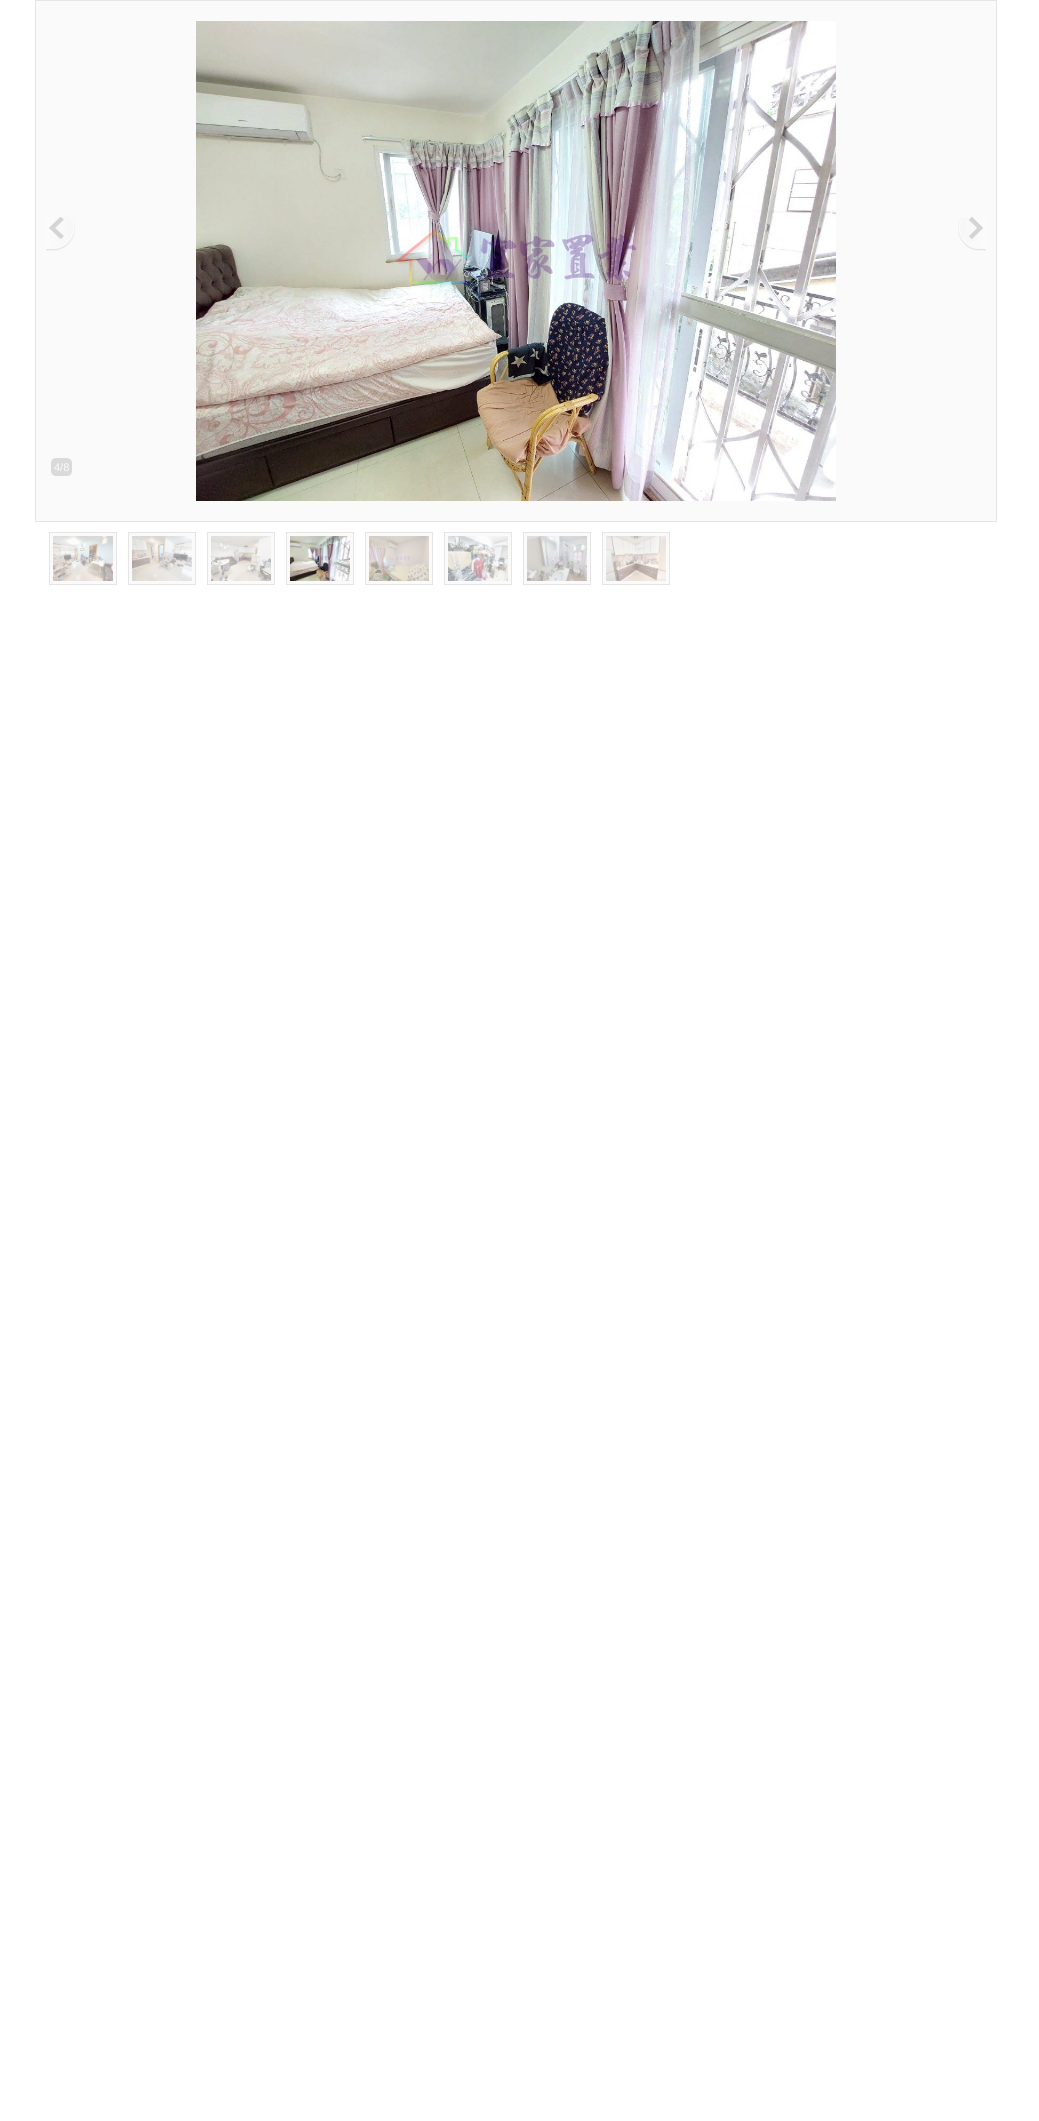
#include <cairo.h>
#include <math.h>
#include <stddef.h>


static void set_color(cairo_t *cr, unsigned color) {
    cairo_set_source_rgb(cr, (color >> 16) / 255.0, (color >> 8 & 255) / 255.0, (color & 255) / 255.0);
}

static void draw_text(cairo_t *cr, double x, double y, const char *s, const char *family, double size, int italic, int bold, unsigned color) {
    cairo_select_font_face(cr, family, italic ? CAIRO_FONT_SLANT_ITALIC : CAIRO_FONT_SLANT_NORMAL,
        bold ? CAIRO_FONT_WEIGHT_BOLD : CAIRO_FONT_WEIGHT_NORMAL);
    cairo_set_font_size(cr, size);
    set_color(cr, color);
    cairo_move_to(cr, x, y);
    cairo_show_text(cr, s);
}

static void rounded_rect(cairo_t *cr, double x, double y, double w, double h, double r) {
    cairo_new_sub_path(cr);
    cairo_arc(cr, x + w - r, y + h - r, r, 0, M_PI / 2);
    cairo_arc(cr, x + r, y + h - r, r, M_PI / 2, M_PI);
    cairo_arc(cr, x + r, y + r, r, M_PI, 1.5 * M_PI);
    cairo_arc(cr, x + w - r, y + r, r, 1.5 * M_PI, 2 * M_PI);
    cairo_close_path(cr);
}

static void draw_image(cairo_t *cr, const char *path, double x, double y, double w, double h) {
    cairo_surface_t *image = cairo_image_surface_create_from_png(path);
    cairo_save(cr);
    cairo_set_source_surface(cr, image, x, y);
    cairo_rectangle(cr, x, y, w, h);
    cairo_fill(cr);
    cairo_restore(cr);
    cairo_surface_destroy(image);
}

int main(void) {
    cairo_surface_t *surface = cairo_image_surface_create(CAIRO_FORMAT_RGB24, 1039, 2121);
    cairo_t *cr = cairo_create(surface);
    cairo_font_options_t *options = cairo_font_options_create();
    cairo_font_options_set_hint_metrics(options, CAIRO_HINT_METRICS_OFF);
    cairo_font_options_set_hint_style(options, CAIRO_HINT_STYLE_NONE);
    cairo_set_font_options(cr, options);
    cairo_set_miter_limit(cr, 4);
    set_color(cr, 0xFFFFFF);
    cairo_paint(cr);
    set_color(cr, 0xFAFAFA);
    cairo_rectangle(cr, 35.5, 0.5, 961, 521);
    cairo_fill_preserve(cr);
    set_color(cr, 0xE5E5E5);
    cairo_set_line_width(cr, 1);
    cairo_stroke(cr);
    draw_image(cr, "assets/img1.png", 46, 217, 29, 34);
    draw_image(cr, "assets/img2.png", 958, 217, 28, 34);
    set_color(cr, 0xDADADA);
    rounded_rect(cr, 51, 458, 21, 18, 5);
    cairo_fill(cr);
    draw_text(cr, 54, 471, "4/8", "Liberation Sans", 11, 0, 0, 0xFBFBFB);
    draw_image(cr, "assets/img3.png", 196, 21, 640, 480);
    set_color(cr, 0xFAFAFA);
    cairo_rectangle(cr, 49.5, 532.5, 67, 52);
    cairo_fill_preserve(cr);
    set_color(cr, 0xE5E5E5);
    cairo_stroke(cr);
    draw_image(cr, "assets/img4.png", 53, 536, 60, 45);
    set_color(cr, 0xFAFAFA);
    cairo_rectangle(cr, 128.5, 532.5, 67, 52);
    cairo_fill_preserve(cr);
    set_color(cr, 0xE5E5E5);
    cairo_stroke(cr);
    draw_image(cr, "assets/img5.png", 132, 536, 60, 45);
    set_color(cr, 0xFAFAFA);
    cairo_rectangle(cr, 207.5, 532.5, 67, 52);
    cairo_fill_preserve(cr);
    set_color(cr, 0xE5E5E5);
    cairo_stroke(cr);
    draw_image(cr, "assets/img6.png", 211, 536, 60, 45);
    set_color(cr, 0xFAFAFA);
    cairo_rectangle(cr, 286.5, 532.5, 67, 52);
    cairo_fill_preserve(cr);
    set_color(cr, 0xE5E5E5);
    cairo_stroke(cr);
    draw_image(cr, "assets/img7.png", 290, 536, 60, 45);
    set_color(cr, 0xFAFAFA);
    cairo_rectangle(cr, 365.5, 532.5, 67, 52);
    cairo_fill_preserve(cr);
    set_color(cr, 0xE5E5E5);
    cairo_stroke(cr);
    draw_image(cr, "assets/img8.png", 369, 536, 60, 45);
    set_color(cr, 0xFAFAFA);
    cairo_rectangle(cr, 444.5, 532.5, 67, 52);
    cairo_fill_preserve(cr);
    set_color(cr, 0xE5E5E5);
    cairo_stroke(cr);
    draw_image(cr, "assets/img9.png", 448, 536, 60, 45);
    set_color(cr, 0xFAFAFA);
    cairo_rectangle(cr, 523.5, 532.5, 67, 52);
    cairo_fill_preserve(cr);
    set_color(cr, 0xE5E5E5);
    cairo_stroke(cr);
    draw_image(cr, "assets/img10.png", 527, 536, 60, 45);
    set_color(cr, 0xFAFAFA);
    cairo_rectangle(cr, 602.5, 532.5, 67, 52);
    cairo_fill_preserve(cr);
    set_color(cr, 0xE5E5E5);
    cairo_stroke(cr);
    draw_image(cr, "assets/img11.png", 606, 536, 60, 45);
    cairo_surface_write_to_png(surface, "output.png");
    cairo_font_options_destroy(options);
    cairo_destroy(cr);
    cairo_surface_destroy(surface);
    return 0;
}
